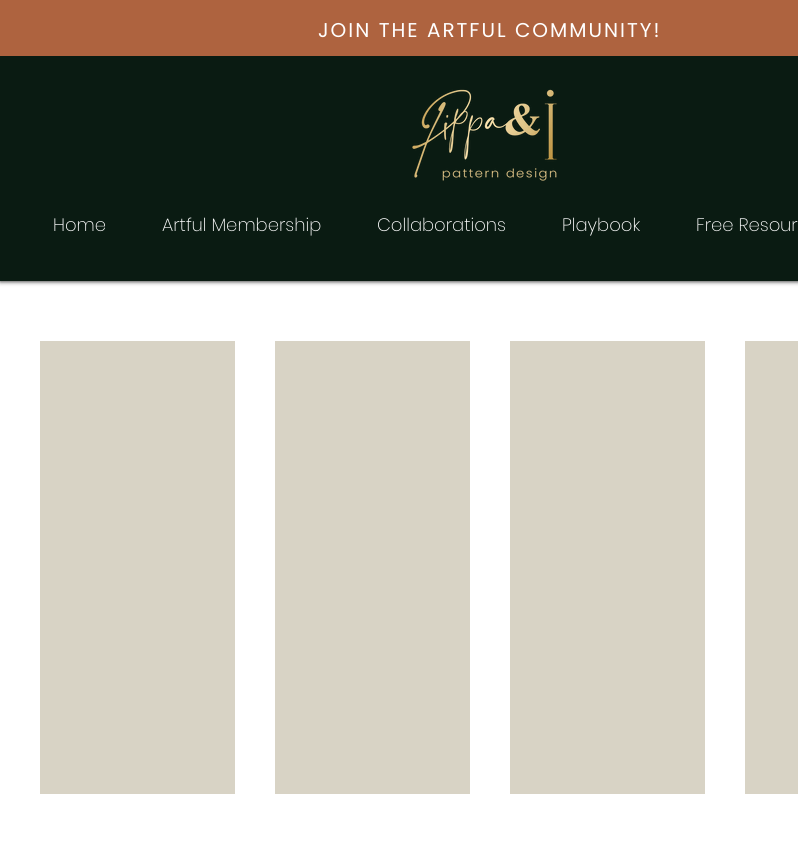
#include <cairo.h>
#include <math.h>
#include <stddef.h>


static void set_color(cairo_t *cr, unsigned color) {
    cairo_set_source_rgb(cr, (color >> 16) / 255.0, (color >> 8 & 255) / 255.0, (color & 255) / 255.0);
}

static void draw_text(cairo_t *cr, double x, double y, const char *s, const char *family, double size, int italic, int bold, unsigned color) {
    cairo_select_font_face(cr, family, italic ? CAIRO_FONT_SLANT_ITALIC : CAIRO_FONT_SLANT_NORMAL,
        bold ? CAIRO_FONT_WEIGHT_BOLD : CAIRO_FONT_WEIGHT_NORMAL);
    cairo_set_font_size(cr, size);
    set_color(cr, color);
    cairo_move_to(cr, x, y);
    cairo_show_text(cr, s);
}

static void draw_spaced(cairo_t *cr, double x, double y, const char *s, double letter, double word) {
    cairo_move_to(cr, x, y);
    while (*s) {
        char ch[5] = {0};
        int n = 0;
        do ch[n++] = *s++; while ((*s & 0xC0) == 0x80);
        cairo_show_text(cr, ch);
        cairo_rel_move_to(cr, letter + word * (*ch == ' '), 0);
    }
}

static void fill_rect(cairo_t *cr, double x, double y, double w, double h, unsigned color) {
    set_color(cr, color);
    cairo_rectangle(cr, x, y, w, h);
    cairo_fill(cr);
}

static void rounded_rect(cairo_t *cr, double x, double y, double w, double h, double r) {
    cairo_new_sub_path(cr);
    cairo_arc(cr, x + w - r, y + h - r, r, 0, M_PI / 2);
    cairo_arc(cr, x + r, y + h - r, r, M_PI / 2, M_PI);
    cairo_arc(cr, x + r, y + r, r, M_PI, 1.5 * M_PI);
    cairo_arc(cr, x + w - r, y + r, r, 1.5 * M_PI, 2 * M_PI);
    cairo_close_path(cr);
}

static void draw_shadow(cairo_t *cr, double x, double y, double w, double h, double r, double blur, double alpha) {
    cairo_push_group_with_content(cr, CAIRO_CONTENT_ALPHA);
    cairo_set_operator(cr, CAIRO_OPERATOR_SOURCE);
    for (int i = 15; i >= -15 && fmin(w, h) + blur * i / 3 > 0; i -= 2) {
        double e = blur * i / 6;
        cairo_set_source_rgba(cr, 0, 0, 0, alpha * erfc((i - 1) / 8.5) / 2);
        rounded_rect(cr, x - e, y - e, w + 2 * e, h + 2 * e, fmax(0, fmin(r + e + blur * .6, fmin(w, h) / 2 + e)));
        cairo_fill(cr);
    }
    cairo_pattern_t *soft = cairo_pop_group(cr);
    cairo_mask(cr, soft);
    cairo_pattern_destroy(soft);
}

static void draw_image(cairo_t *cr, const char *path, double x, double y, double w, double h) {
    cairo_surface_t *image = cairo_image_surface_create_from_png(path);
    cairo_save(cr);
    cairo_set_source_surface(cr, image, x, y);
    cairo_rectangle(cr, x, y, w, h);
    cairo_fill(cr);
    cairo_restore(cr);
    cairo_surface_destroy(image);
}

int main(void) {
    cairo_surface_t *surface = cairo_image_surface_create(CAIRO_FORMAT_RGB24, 798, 845);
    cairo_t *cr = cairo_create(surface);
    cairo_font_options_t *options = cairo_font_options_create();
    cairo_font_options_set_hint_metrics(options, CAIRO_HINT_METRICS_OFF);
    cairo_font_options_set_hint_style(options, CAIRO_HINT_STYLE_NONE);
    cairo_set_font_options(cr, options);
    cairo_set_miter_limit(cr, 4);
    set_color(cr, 0xFFFFFF);
    cairo_paint(cr);
    set_color(cr, 0x000000);
    draw_shadow(cr, 0, 0, 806, 281, 0, 2.5, 1);
    fill_rect(cr, 0, 56, 798, 225, 0x0A1B12);
    fill_rect(cr, 0, 0, 798, 56, 0xAE633F);
    cairo_select_font_face(cr, "Poppins", CAIRO_FONT_SLANT_NORMAL, CAIRO_FONT_WEIGHT_NORMAL);
    cairo_set_font_size(cr, 20);
    set_color(cr, 0xFFFFFF);
    draw_spaced(cr, 318, 37, "JOIN THE ARTFUL COMMUNITY!", 2, 0);
    draw_image(cr, "assets/img1.png", 412, 89, 145, 92);
    draw_text(cr, 53, 231, "Home", "Poppins ExtraLight", 18, 0, 0, 0xFFFFFF);
    draw_text(cr, 162, 231, "Artful Membership", "Poppins ExtraLight", 18, 0, 0, 0xFFFFFF);
    draw_text(cr, 377, 231, "Collaborations", "Poppins ExtraLight", 18, 0, 0, 0xFFFFFF);
    draw_text(cr, 562, 231, "Playbook", "Poppins ExtraLight", 18, 0, 0, 0xFFFFFF);
    draw_text(cr, 696, 231, "Free Resour", "Poppins ExtraLight", 18, 0, 0, 0xFFFFFF);
    fill_rect(cr, 40, 341, 195, 453, 0xD8D3C5);
    fill_rect(cr, 275, 341, 195, 453, 0xD8D3C5);
    fill_rect(cr, 510, 341, 195, 453, 0xD8D3C5);
    fill_rect(cr, 745, 341, 53, 453, 0xD8D3C5);
    cairo_surface_write_to_png(surface, "output.png");
    cairo_font_options_destroy(options);
    cairo_destroy(cr);
    cairo_surface_destroy(surface);
    return 0;
}
